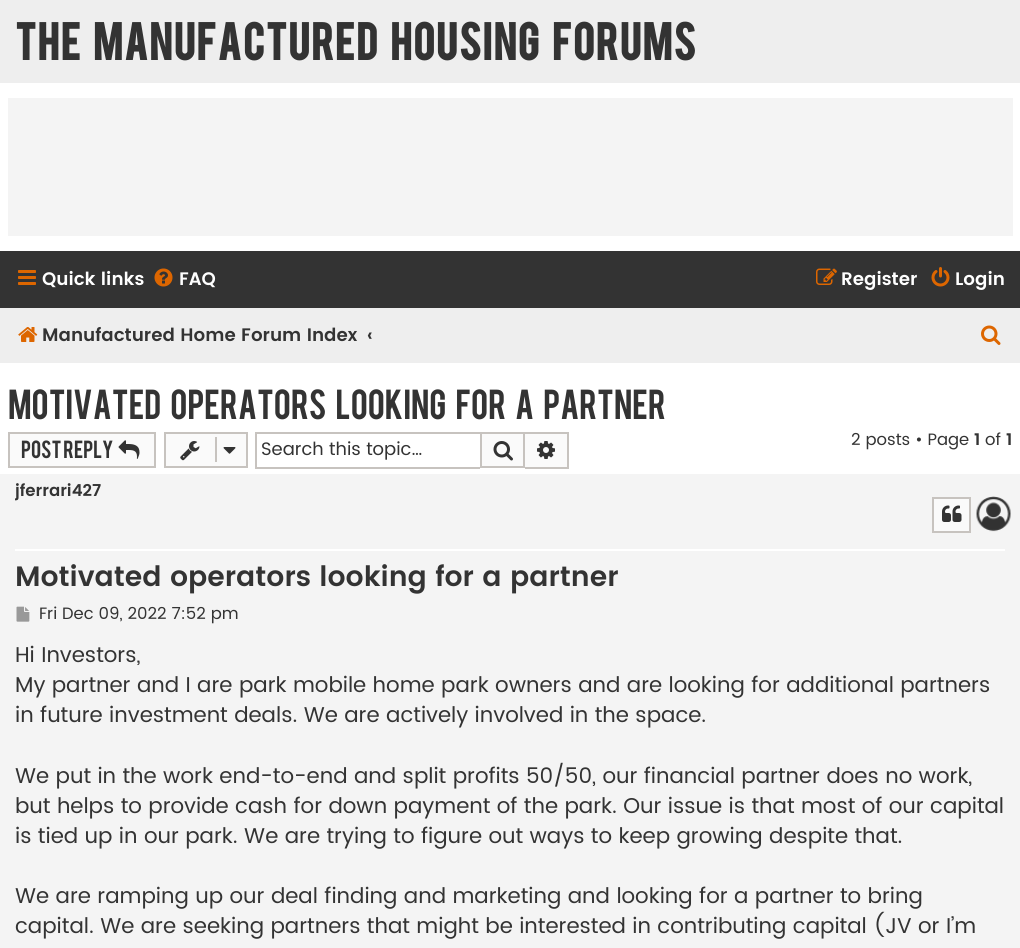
#include <cairo.h>
#include <math.h>
#include <stddef.h>


static void set_color(cairo_t *cr, unsigned color) {
    cairo_set_source_rgb(cr, (color >> 16) / 255.0, (color >> 8 & 255) / 255.0, (color & 255) / 255.0);
}

static void draw_text(cairo_t *cr, double x, double y, const char *s, const char *family, double size, int italic, int bold, unsigned color) {
    cairo_select_font_face(cr, family, italic ? CAIRO_FONT_SLANT_ITALIC : CAIRO_FONT_SLANT_NORMAL,
        bold ? CAIRO_FONT_WEIGHT_BOLD : CAIRO_FONT_WEIGHT_NORMAL);
    cairo_set_font_size(cr, size);
    set_color(cr, color);
    cairo_move_to(cr, x, y);
    cairo_show_text(cr, s);
}

static void draw_spaced(cairo_t *cr, double x, double y, const char *s, double letter, double word) {
    cairo_move_to(cr, x, y);
    while (*s) {
        char ch[5] = {0};
        int n = 0;
        do ch[n++] = *s++; while ((*s & 0xC0) == 0x80);
        cairo_show_text(cr, ch);
        cairo_rel_move_to(cr, letter + word * (*ch == ' '), 0);
    }
}

static void fill_rect(cairo_t *cr, double x, double y, double w, double h, unsigned color) {
    set_color(cr, color);
    cairo_rectangle(cr, x, y, w, h);
    cairo_fill(cr);
}

static void draw_image(cairo_t *cr, const char *path, double x, double y, double w, double h) {
    cairo_surface_t *image = cairo_image_surface_create_from_png(path);
    cairo_save(cr);
    cairo_set_source_surface(cr, image, x, y);
    cairo_rectangle(cr, x, y, w, h);
    cairo_fill(cr);
    cairo_restore(cr);
    cairo_surface_destroy(image);
}

int main(void) {
    cairo_surface_t *surface = cairo_image_surface_create(CAIRO_FORMAT_RGB24, 1020, 948);
    cairo_t *cr = cairo_create(surface);
    cairo_font_options_t *options = cairo_font_options_create();
    cairo_font_options_set_hint_metrics(options, CAIRO_HINT_METRICS_OFF);
    cairo_font_options_set_hint_style(options, CAIRO_HINT_STYLE_NONE);
    cairo_set_font_options(cr, options);
    cairo_set_miter_limit(cr, 4);
    set_color(cr, 0xFFFFFF);
    cairo_paint(cr);
    fill_rect(cr, 0, 0, 1020, 83, 0xEEEEEE);
    cairo_select_font_face(cr, "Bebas", CAIRO_FONT_SLANT_NORMAL, CAIRO_FONT_WEIGHT_BOLD);
    cairo_set_font_size(cr, 41.25);
    set_color(cr, 0x333333);
    draw_spaced(cr, 15, 60, "The Manufactured Housing Forums", 1.5, 6);
    fill_rect(cr, 8, 98, 1005, 138, 0xF4F4F4);
    fill_rect(cr, 0, 251, 1020, 57, 0x333333);
    draw_image(cr, "assets/img1.png", 18, 270, 18, 15);
    draw_text(cr, 42, 285, "Quick links", "Poppins SemiBold", 18.1, 0, 0, 0xFFFFFF);
    draw_image(cr, "assets/img2.png", 154, 268, 19, 19);
    draw_text(cr, 179, 285, "FAQ", "Poppins SemiBold", 18.1, 0, 0, 0xFFFFFF);
    draw_image(cr, "assets/img3.png", 816, 268, 21, 17);
    draw_text(cr, 841, 285, "Register", "Poppins SemiBold", 18.1, 0, 0, 0xFFFFFF);
    draw_image(cr, "assets/img4.png", 931, 267, 19, 20);
    draw_text(cr, 955, 285, "Login", "Poppins SemiBold", 18.1, 0, 0, 0xFFFFFF);
    fill_rect(cr, 0, 308, 1020, 55, 0xEEEEEE);
    draw_image(cr, "assets/img5.png", 18, 327, 20, 15);
    draw_text(cr, 42, 341, "Manufactured Home Forum Index", "Poppins SemiBold", 18.1, 0, 0, 0x333333);
    draw_text(cr, 367, 341, "‹", "Poppins SemiBold", 18.1, 0, 0, 0x333333);
    draw_image(cr, "assets/img6.png", 981, 325, 20, 20);
    cairo_select_font_face(cr, "Bebas", CAIRO_FONT_SLANT_NORMAL, CAIRO_FONT_WEIGHT_NORMAL);
    cairo_set_font_size(cr, 33);
    draw_spaced(cr, 8, 419, "Motivated operators looking for a partner", 0, 6);
    set_color(cr, 0xFAFAFA);
    cairo_rectangle(cr, 9, 433, 146, 34);
    cairo_fill_preserve(cr);
    set_color(cr, 0xC7C3BF);
    cairo_stroke(cr);
    draw_text(cr, 21, 458, "Post Reply", "Bebas", 19.5, 0, 0, 0x333333);
    draw_image(cr, "assets/img7.png", 118, 440, 22, 19);
    set_color(cr, 0xFAFAFA);
    cairo_rectangle(cr, 165, 433, 82, 34);
    cairo_fill_preserve(cr);
    set_color(cr, 0xC7C3BF);
    cairo_stroke(cr);
    draw_image(cr, "assets/img8.png", 180, 441, 20, 20);
    fill_rect(cr, 215, 437, 2, 25, 0xC7C3BF);
    draw_image(cr, "assets/img9.png", 223, 447, 13, 7);
    fill_rect(cr, 255, 432, 225, 2, 0xC7C3BF);
    fill_rect(cr, 255, 467, 225, 2, 0xC7C3BF);
    fill_rect(cr, 255, 432, 2, 36, 0xC7C3BF);
    draw_text(cr, 261, 455, "Search this topic…", "Poppins", 18.1, 0, 0, 0x333333);
    set_color(cr, 0xFAFAFA);
    cairo_rectangle(cr, 481, 433, 43, 34);
    cairo_fill_preserve(cr);
    set_color(cr, 0xC7C3BF);
    cairo_stroke(cr);
    draw_image(cr, "assets/img10.png", 493, 441, 20, 20);
    fill_rect(cr, 525, 434, 42, 33, 0xFAFAFA);
    fill_rect(cr, 525, 432, 44, 2, 0xC7C3BF);
    fill_rect(cr, 567, 432, 2, 36, 0xC7C3BF);
    fill_rect(cr, 525, 467, 44, 2, 0xC7C3BF);
    draw_image(cr, "assets/img11.png", 537, 441, 18, 18);
    draw_text(cr, 851, 445, "2 posts • Page", "Poppins", 16.5, 0, 0, 0x333333);
    draw_text(cr, 974, 445, "1", "Poppins SemiBold", 16.5, 0, 0, 0x333333);
    draw_text(cr, 985, 445, "of", "Poppins", 16.5, 0, 0, 0x333333);
    draw_text(cr, 1006, 445, "1", "Poppins SemiBold", 16.5, 0, 0, 0x333333);
    fill_rect(cr, 0, 474, 1020, 474, 0xF4F4F4);
    draw_image(cr, "assets/img12.png", 976, 496, 35, 36);
    fill_rect(cr, 15, 549, 990, 2, 0xFFFFFF);
    cairo_save(cr);
    cairo_rectangle(cr, 15, 482, 990, 67);
    cairo_clip(cr);
    draw_text(cr, 15, 496, "jferrari427", "Poppins SemiBold", 16.5, 0, 0, 0x333333);
    cairo_restore(cr);
    set_color(cr, 0xFAFAFA);
    cairo_rectangle(cr, 933, 498, 37, 34);
    cairo_fill_preserve(cr);
    set_color(cr, 0xC7C3BF);
    cairo_stroke(cr);
    draw_image(cr, "assets/img13.png", 942, 505, 20, 17);
    draw_text(cr, 15, 586, "Motivated operators looking for a partner", "Poppins SemiBold", 28.05, 0, 0, 0x333333);
    draw_image(cr, "assets/img14.png", 16, 606, 14, 16);
    draw_text(cr, 39, 619, "Fri Dec 09, 2022 7:52 pm", "Poppins", 16.5, 0, 0, 0x333333);
    draw_text(cr, 15, 662, "Hi Investors,", "Poppins", 21.45, 0, 0, 0x333333);
    draw_text(cr, 15, 692, "My partner and I are park mobile home park owners and are looking for additional partners", "Poppins", 21.45, 0, 0, 0x333333);
    draw_text(cr, 15, 722, "in future investment deals. We are actively involved in the space.", "Poppins", 21.45, 0, 0, 0x333333);
    draw_text(cr, 15, 783, "We put in the work end-to-end and split profits 50/50, our financial partner does no work,", "Poppins", 21.45, 0, 0, 0x333333);
    draw_text(cr, 15, 813, "but helps to provide cash for down payment of the park. Our issue is that most of our capital", "Poppins", 21.45, 0, 0, 0x333333);
    draw_text(cr, 15, 843, "is tied up in our park. We are trying to figure out ways to keep growing despite that.", "Poppins", 21.45, 0, 0, 0x333333);
    draw_text(cr, 15, 903, "We are ramping up our deal finding and marketing and looking for a partner to bring", "Poppins", 21.45, 0, 0, 0x333333);
    draw_text(cr, 15, 933, "capital. We are seeking partners that might be interested in contributing capital (JV or I’m", "Poppins", 21.45, 0, 0, 0x333333);
    cairo_surface_write_to_png(surface, "output.png");
    cairo_font_options_destroy(options);
    cairo_destroy(cr);
    cairo_surface_destroy(surface);
    return 0;
}
